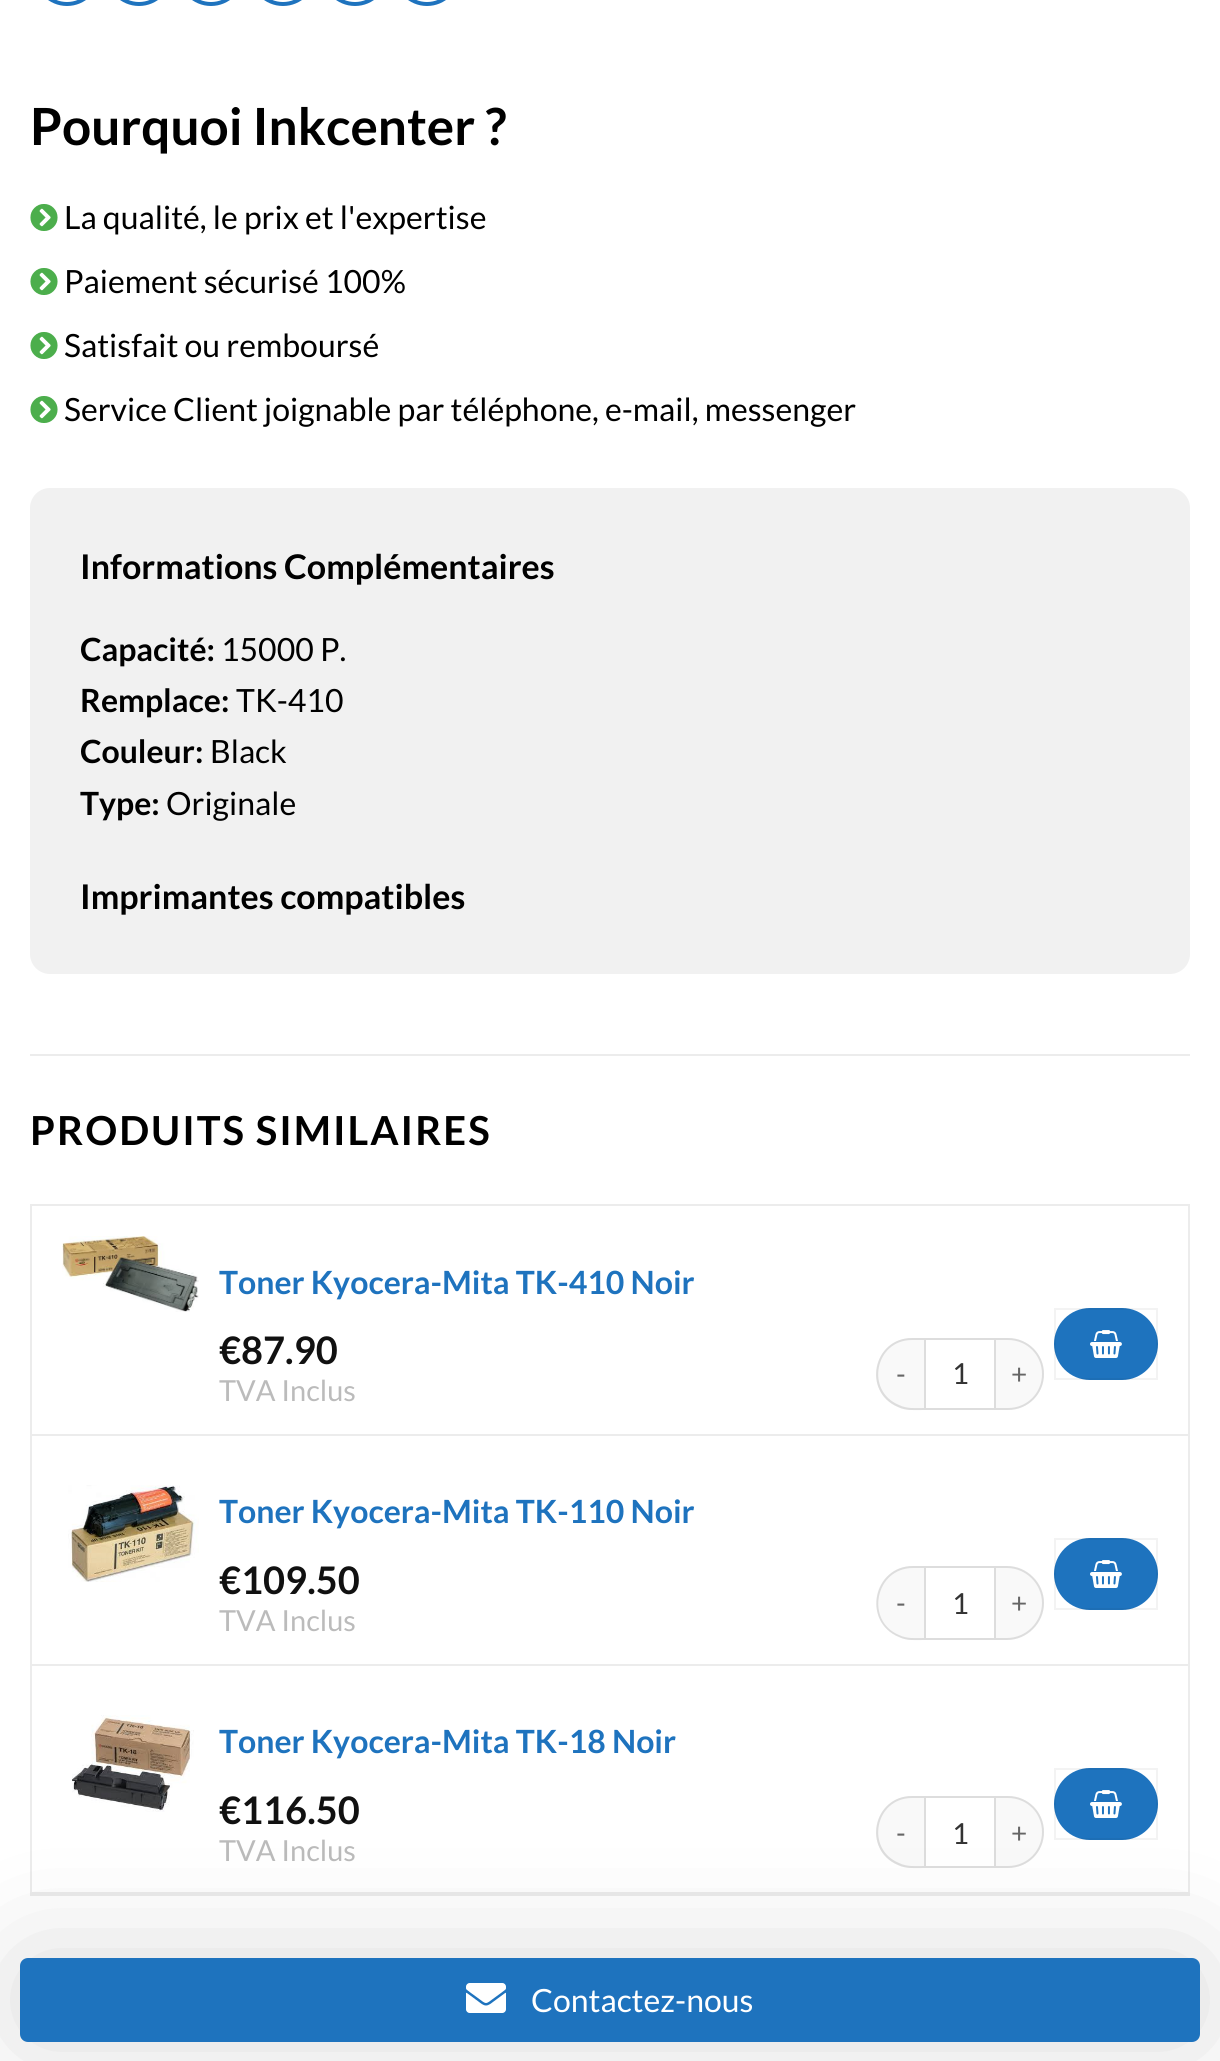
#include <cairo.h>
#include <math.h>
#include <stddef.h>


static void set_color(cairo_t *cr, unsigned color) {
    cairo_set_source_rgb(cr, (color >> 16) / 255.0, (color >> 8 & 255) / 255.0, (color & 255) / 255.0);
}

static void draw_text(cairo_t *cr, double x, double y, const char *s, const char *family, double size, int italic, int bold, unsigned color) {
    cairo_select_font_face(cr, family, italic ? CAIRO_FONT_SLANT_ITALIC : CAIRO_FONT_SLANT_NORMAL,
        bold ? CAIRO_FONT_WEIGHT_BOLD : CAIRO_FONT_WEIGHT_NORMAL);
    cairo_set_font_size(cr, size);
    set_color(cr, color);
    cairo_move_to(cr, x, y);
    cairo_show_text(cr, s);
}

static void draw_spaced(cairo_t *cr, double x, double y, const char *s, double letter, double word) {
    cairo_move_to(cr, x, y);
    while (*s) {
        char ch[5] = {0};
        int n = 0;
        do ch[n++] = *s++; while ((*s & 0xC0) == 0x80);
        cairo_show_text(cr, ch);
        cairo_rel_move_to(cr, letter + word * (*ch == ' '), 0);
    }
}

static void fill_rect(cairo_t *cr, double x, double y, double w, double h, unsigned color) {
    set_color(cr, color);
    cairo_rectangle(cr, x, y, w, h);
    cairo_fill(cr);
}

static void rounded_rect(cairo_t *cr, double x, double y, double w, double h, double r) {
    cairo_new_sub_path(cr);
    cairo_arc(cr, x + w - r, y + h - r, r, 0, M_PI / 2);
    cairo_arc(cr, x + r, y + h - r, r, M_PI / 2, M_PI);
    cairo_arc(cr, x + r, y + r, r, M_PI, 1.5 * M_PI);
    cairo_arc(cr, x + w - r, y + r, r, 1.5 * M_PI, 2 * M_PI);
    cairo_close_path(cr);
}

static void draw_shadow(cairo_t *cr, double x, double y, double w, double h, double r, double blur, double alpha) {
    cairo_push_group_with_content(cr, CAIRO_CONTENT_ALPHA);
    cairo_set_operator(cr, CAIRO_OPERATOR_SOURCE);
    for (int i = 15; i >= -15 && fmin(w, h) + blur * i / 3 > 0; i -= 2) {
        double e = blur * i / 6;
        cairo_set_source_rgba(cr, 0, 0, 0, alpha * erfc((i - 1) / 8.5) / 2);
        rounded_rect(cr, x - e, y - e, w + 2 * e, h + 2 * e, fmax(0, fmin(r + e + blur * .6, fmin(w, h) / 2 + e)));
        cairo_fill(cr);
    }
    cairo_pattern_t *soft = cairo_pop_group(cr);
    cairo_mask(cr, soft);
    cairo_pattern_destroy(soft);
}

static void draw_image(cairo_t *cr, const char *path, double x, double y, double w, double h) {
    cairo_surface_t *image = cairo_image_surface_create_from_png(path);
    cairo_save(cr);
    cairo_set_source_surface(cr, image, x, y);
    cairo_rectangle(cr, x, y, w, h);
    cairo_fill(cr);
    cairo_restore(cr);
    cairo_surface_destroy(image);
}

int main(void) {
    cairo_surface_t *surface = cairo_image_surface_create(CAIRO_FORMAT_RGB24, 1220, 2061);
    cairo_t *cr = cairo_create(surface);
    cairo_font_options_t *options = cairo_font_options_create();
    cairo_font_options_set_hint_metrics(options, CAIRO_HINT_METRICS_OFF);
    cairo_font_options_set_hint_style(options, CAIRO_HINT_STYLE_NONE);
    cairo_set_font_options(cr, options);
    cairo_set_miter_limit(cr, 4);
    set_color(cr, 0xFFFFFF);
    cairo_paint(cr);
    rounded_rect(cr, 36, -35, 62, 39, 31);
    set_color(cr, 0x1E73BE);
    cairo_set_line_width(cr, 4);
    cairo_stroke(cr);
    rounded_rect(cr, 108, -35, 62, 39, 31);
    cairo_stroke(cr);
    rounded_rect(cr, 180, -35, 62, 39, 31);
    cairo_stroke(cr);
    rounded_rect(cr, 252, -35, 62, 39, 31);
    cairo_stroke(cr);
    rounded_rect(cr, 324, -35, 62, 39, 31);
    cairo_stroke(cr);
    rounded_rect(cr, 396, -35, 62, 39, 31);
    cairo_stroke(cr);
    draw_text(cr, 30, 145, "Pourquoi Inkcenter ?", "Lato", 51.25, 0, 1, 0x000000);
    draw_image(cr, "assets/img1.png", 30, 204, 28, 27);
    draw_text(cr, 64, 229, "La qualité, le prix et l'expertise", "Lato", 32, 0, 0, 0x000000);
    draw_image(cr, "assets/img1.png", 30, 268, 28, 27);
    draw_text(cr, 64, 293, "Paiement sécurisé 100%", "Lato", 32, 0, 0, 0x000000);
    draw_image(cr, "assets/img1.png", 30, 332, 28, 27);
    draw_text(cr, 64, 357, "Satisfait ou remboursé", "Lato", 32, 0, 0, 0x000000);
    draw_image(cr, "assets/img1.png", 30, 396, 28, 27);
    draw_text(cr, 64, 421, "Service Client joignable par téléphone, e-mail, messenger", "Lato", 32, 0, 0, 0x000000);
    set_color(cr, 0xF1F1F1);
    rounded_rect(cr, 30, 488, 1160, 486, 20);
    cairo_fill(cr);
    draw_text(cr, 80, 579, "Informations Complémentaires", "Lato", 34, 0, 1, 0x000000);
    draw_text(cr, 80, 661, "Capacité:", "Lato", 32, 0, 1, 0x000000);
    draw_text(cr, 221, 661, "15000 P.", "Lato", 32, 0, 0, 0x000000);
    draw_text(cr, 80, 712, "Remplace:", "Lato", 32, 0, 1, 0x000000);
    draw_text(cr, 236, 712, "TK-410", "Lato", 32, 0, 0, 0x000000);
    draw_text(cr, 80, 763, "Couleur:", "Lato", 32, 0, 1, 0x000000);
    draw_text(cr, 210, 763, "Black", "Lato", 32, 0, 0, 0x000000);
    draw_text(cr, 80, 815, "Type:", "Lato", 32, 0, 1, 0x000000);
    draw_text(cr, 166, 815, "Originale", "Lato", 32, 0, 0, 0x000000);
    draw_text(cr, 80, 909, "Imprimantes compatibles", "Lato", 34, 0, 1, 0x000000);
    fill_rect(cr, 30, 1054, 1160, 2, 0xECECEC);
    cairo_set_font_size(cr, 40);
    set_color(cr, 0x000000);
    draw_spaced(cr, 30, 1145, "PRODUITS SIMILAIRES", 2, 0);
    fill_rect(cr, 30, 1204, 1160, 2, 0xECECEC);
    fill_rect(cr, 30, 1894, 1160, 2, 0xECECEC);
    fill_rect(cr, 30, 1204, 2, 692, 0xECECEC);
    fill_rect(cr, 1188, 1206, 2, 688, 0xECECEC);
    fill_rect(cr, 32, 1434, 1158, 2, 0xECECEC);
    draw_image(cr, "assets/img2.png", 62, 1236, 137, 76);
    draw_text(cr, 219, 1294, "Toner Kyocera-Mita TK-410 Noir", "Lato", 32, 0, 1, 0x1E73BE);
    draw_text(cr, 219, 1364, "€87.90", "Lato", 38, 0, 1, 0x111111);
    draw_text(cr, 219, 1401, "TVA Inclus", "Lato", 29, 0, 0, 0xBBBBBB);
    set_color(cr, 0xF9F9F9);
    cairo_new_path(cr);
    cairo_move_to(cr, 912, 1338);
    cairo_line_to(cr, 924, 1338);
    cairo_line_to(cr, 924, 1410);
    cairo_line_to(cr, 912, 1410);
    cairo_curve_to(cr, 892, 1410, 876, 1394, 876, 1374);
    cairo_curve_to(cr, 876, 1354, 892, 1338, 912, 1338);
    cairo_close_path(cr);
    cairo_fill(cr);
    set_color(cr, 0xDDDDDD);
    cairo_set_fill_rule(cr, CAIRO_FILL_RULE_EVEN_ODD);
    cairo_new_path(cr);
    cairo_move_to(cr, 912, 1338);
    cairo_line_to(cr, 924, 1338);
    cairo_line_to(cr, 924, 1410);
    cairo_curve_to(cr, 915, 1410, 906, 1411, 898, 1407);
    cairo_curve_to(cr, 862, 1392, 873, 1338, 912, 1338);
    cairo_close_path(cr);
    cairo_move_to(cr, 912, 1340);
    cairo_line_to(cr, 924, 1340);
    cairo_line_to(cr, 924, 1408);
    cairo_curve_to(cr, 916, 1408, 907, 1409, 899, 1405);
    cairo_curve_to(cr, 865, 1391, 875, 1340, 912, 1340);
    cairo_close_path(cr);
    cairo_fill(cr);
    cairo_set_font_size(cr, 28);
    set_color(cr, 0x666666);
    draw_spaced(cr, 896, 1384, "-", 1, 0);
    cairo_rectangle(cr, 925, 1339, 70, 70);
    set_color(cr, 0xDDDDDD);
    cairo_set_line_width(cr, 2);
    cairo_stroke(cr);
    draw_text(cr, 952, 1384, "1", "Lato", 29, 0, 0, 0x333333);
    set_color(cr, 0xF9F9F9);
    cairo_new_path(cr);
    cairo_move_to(cr, 996, 1338);
    cairo_line_to(cr, 1008, 1338);
    cairo_curve_to(cr, 1028, 1338, 1044, 1354, 1044, 1374);
    cairo_curve_to(cr, 1044, 1394, 1028, 1410, 1008, 1410);
    cairo_line_to(cr, 996, 1410);
    cairo_close_path(cr);
    cairo_fill(cr);
    set_color(cr, 0xDDDDDD);
    cairo_new_path(cr);
    cairo_move_to(cr, 996, 1338);
    cairo_line_to(cr, 1008, 1338);
    cairo_curve_to(cr, 1028, 1338, 1044, 1354, 1044, 1374);
    cairo_curve_to(cr, 1044, 1394, 1028, 1410, 1008, 1410);
    cairo_line_to(cr, 996, 1410);
    cairo_close_path(cr);
    cairo_move_to(cr, 996, 1340);
    cairo_line_to(cr, 1008, 1340);
    cairo_curve_to(cr, 1027, 1340, 1042, 1355, 1042, 1374);
    cairo_curve_to(cr, 1042, 1393, 1027, 1408, 1008, 1408);
    cairo_line_to(cr, 996, 1408);
    cairo_close_path(cr);
    cairo_fill(cr);
    cairo_set_font_size(cr, 28);
    set_color(cr, 0x666666);
    draw_spaced(cr, 1011, 1384, "+", 1, 0);
    set_color(cr, 0x1E73BE);
    rounded_rect(cr, 1054, 1308, 104, 72, 36);
    cairo_fill(cr);
    cairo_rectangle(cr, 1055, 1309, 102, 70);
    cairo_set_source_rgba(cr, 0, 0, 0, 0.05);
    cairo_stroke(cr);
    draw_image(cr, "assets/img3.png", 1090, 1330, 32, 28);
    fill_rect(cr, 32, 1664, 1158, 2, 0xECECEC);
    draw_image(cr, "assets/img4.png", 68, 1485, 131, 97);
    draw_text(cr, 219, 1523, "Toner Kyocera-Mita TK-110 Noir", "Lato", 32, 0, 1, 0x1E73BE);
    draw_text(cr, 219, 1594, "€109.50", "Lato", 38, 0, 1, 0x111111);
    draw_text(cr, 219, 1631, "TVA Inclus", "Lato", 29, 0, 0, 0xBBBBBB);
    set_color(cr, 0xF9F9F9);
    cairo_new_path(cr);
    cairo_move_to(cr, 913, 1566);
    cairo_line_to(cr, 924, 1566);
    cairo_line_to(cr, 924, 1640);
    cairo_line_to(cr, 913, 1640);
    cairo_curve_to(cr, 892.5, 1640, 876, 1623.5, 876, 1603);
    cairo_curve_to(cr, 876, 1582.5, 892.5, 1566, 913, 1566);
    cairo_close_path(cr);
    cairo_fill(cr);
    set_color(cr, 0xDDDDDD);
    cairo_new_path(cr);
    cairo_move_to(cr, 913, 1566);
    cairo_line_to(cr, 924, 1566);
    cairo_line_to(cr, 924, 1640);
    cairo_curve_to(cr, 915, 1640, 907, 1641, 899, 1637);
    cairo_curve_to(cr, 862, 1622, 873, 1566, 913, 1566);
    cairo_close_path(cr);
    cairo_move_to(cr, 913, 1568);
    cairo_line_to(cr, 924, 1568);
    cairo_line_to(cr, 924, 1638);
    cairo_curve_to(cr, 916, 1638, 907, 1639, 899, 1635);
    cairo_curve_to(cr, 865, 1621, 875, 1568, 913, 1568);
    cairo_close_path(cr);
    cairo_fill(cr);
    cairo_set_font_size(cr, 28);
    set_color(cr, 0x666666);
    draw_spaced(cr, 896, 1613, "-", 1, 0);
    cairo_rectangle(cr, 925, 1567, 70, 72);
    set_color(cr, 0xDDDDDD);
    cairo_stroke(cr);
    draw_text(cr, 952, 1614, "1", "Lato", 29, 0, 0, 0x333333);
    set_color(cr, 0xF9F9F9);
    cairo_new_path(cr);
    cairo_move_to(cr, 996, 1566);
    cairo_line_to(cr, 1007, 1566);
    cairo_curve_to(cr, 1027.5, 1566, 1044, 1582.5, 1044, 1603);
    cairo_curve_to(cr, 1044, 1623.5, 1027.5, 1640, 1007, 1640);
    cairo_line_to(cr, 996, 1640);
    cairo_close_path(cr);
    cairo_fill(cr);
    set_color(cr, 0xDDDDDD);
    cairo_new_path(cr);
    cairo_move_to(cr, 996, 1566);
    cairo_line_to(cr, 1007, 1566);
    cairo_curve_to(cr, 1027, 1566, 1044, 1583, 1044, 1603);
    cairo_curve_to(cr, 1044, 1623, 1027, 1640, 1007, 1640);
    cairo_line_to(cr, 996, 1640);
    cairo_close_path(cr);
    cairo_move_to(cr, 996, 1568);
    cairo_line_to(cr, 1007, 1568);
    cairo_curve_to(cr, 1026, 1568, 1042, 1584, 1042, 1603);
    cairo_curve_to(cr, 1042, 1622, 1026, 1638, 1007, 1638);
    cairo_line_to(cr, 996, 1638);
    cairo_close_path(cr);
    cairo_fill(cr);
    cairo_set_font_size(cr, 28);
    set_color(cr, 0x666666);
    draw_spaced(cr, 1011, 1613, "+", 1, 0);
    set_color(cr, 0x1E73BE);
    rounded_rect(cr, 1054, 1538, 104, 72, 36);
    cairo_fill(cr);
    cairo_rectangle(cr, 1055, 1539, 102, 70);
    cairo_set_source_rgba(cr, 0, 0, 0, 0.05);
    cairo_stroke(cr);
    draw_image(cr, "assets/img3.png", 1090, 1560, 32, 28);
    fill_rect(cr, 32, 1892, 1158, 2, 0xECECEC);
    draw_image(cr, "assets/img5.png", 72, 1715, 122, 97);
    draw_text(cr, 219, 1753, "Toner Kyocera-Mita TK-18 Noir", "Lato", 32, 0, 1, 0x1E73BE);
    draw_text(cr, 219, 1824, "€116.50", "Lato", 38, 0, 1, 0x111111);
    draw_text(cr, 219, 1861, "TVA Inclus", "Lato", 29, 0, 0, 0xBBBBBB);
    set_color(cr, 0xF9F9F9);
    cairo_new_path(cr);
    cairo_move_to(cr, 912, 1796);
    cairo_line_to(cr, 924, 1796);
    cairo_line_to(cr, 924, 1868);
    cairo_line_to(cr, 912, 1868);
    cairo_curve_to(cr, 892, 1868, 876, 1852, 876, 1832);
    cairo_curve_to(cr, 876, 1812, 892, 1796, 912, 1796);
    cairo_close_path(cr);
    cairo_fill(cr);
    set_color(cr, 0xDDDDDD);
    cairo_new_path(cr);
    cairo_move_to(cr, 912, 1796);
    cairo_line_to(cr, 924, 1796);
    cairo_line_to(cr, 924, 1868);
    cairo_curve_to(cr, 915, 1868, 906, 1869, 898, 1865);
    cairo_curve_to(cr, 862, 1850, 873, 1796, 912, 1796);
    cairo_close_path(cr);
    cairo_move_to(cr, 912, 1798);
    cairo_line_to(cr, 924, 1798);
    cairo_line_to(cr, 924, 1866);
    cairo_curve_to(cr, 916, 1866, 907, 1867, 899, 1863);
    cairo_curve_to(cr, 865, 1849, 875, 1798, 912, 1798);
    cairo_close_path(cr);
    cairo_fill(cr);
    cairo_set_font_size(cr, 28);
    set_color(cr, 0x666666);
    draw_spaced(cr, 896, 1843, "-", 1, 0);
    cairo_rectangle(cr, 925, 1797, 70, 70);
    set_color(cr, 0xDDDDDD);
    cairo_stroke(cr);
    draw_text(cr, 952, 1844, "1", "Lato", 29, 0, 0, 0x333333);
    set_color(cr, 0xF9F9F9);
    cairo_new_path(cr);
    cairo_move_to(cr, 996, 1796);
    cairo_line_to(cr, 1008, 1796);
    cairo_curve_to(cr, 1028, 1796, 1044, 1812, 1044, 1832);
    cairo_curve_to(cr, 1044, 1852, 1028, 1868, 1008, 1868);
    cairo_line_to(cr, 996, 1868);
    cairo_close_path(cr);
    cairo_fill(cr);
    set_color(cr, 0xDDDDDD);
    cairo_new_path(cr);
    cairo_move_to(cr, 996, 1796);
    cairo_line_to(cr, 1008, 1796);
    cairo_curve_to(cr, 1028, 1796, 1044, 1812, 1044, 1832);
    cairo_curve_to(cr, 1044, 1852, 1028, 1868, 1008, 1868);
    cairo_line_to(cr, 996, 1868);
    cairo_close_path(cr);
    cairo_move_to(cr, 996, 1798);
    cairo_line_to(cr, 1008, 1798);
    cairo_curve_to(cr, 1027, 1798, 1042, 1813, 1042, 1832);
    cairo_curve_to(cr, 1042, 1851, 1027, 1866, 1008, 1866);
    cairo_line_to(cr, 996, 1866);
    cairo_close_path(cr);
    cairo_fill(cr);
    cairo_set_font_size(cr, 28);
    set_color(cr, 0x666666);
    draw_spaced(cr, 1011, 1843, "+", 1, 0);
    set_color(cr, 0x1E73BE);
    rounded_rect(cr, 1054, 1768, 104, 72, 36);
    cairo_fill(cr);
    cairo_rectangle(cr, 1055, 1769, 102, 70);
    cairo_set_source_rgba(cr, 0, 0, 0, 0.05);
    cairo_stroke(cr);
    draw_image(cr, "assets/img3.png", 1090, 1790, 32, 28);
    set_color(cr, 0x000000);
    draw_shadow(cr, 20, 1958, 1180, 84, 8, 60, 0.15);
    set_color(cr, 0x1E73BE);
    rounded_rect(cr, 20, 1958, 1180, 84, 8);
    cairo_fill(cr);
    draw_image(cr, "assets/img6.png", 466, 1983, 40, 30);
    draw_text(cr, 531, 2012, "Contactez-nous", "Lato", 32, 0, 0, 0xFFFFFF);
    cairo_surface_write_to_png(surface, "output.png");
    cairo_font_options_destroy(options);
    cairo_destroy(cr);
    cairo_surface_destroy(surface);
    return 0;
}
